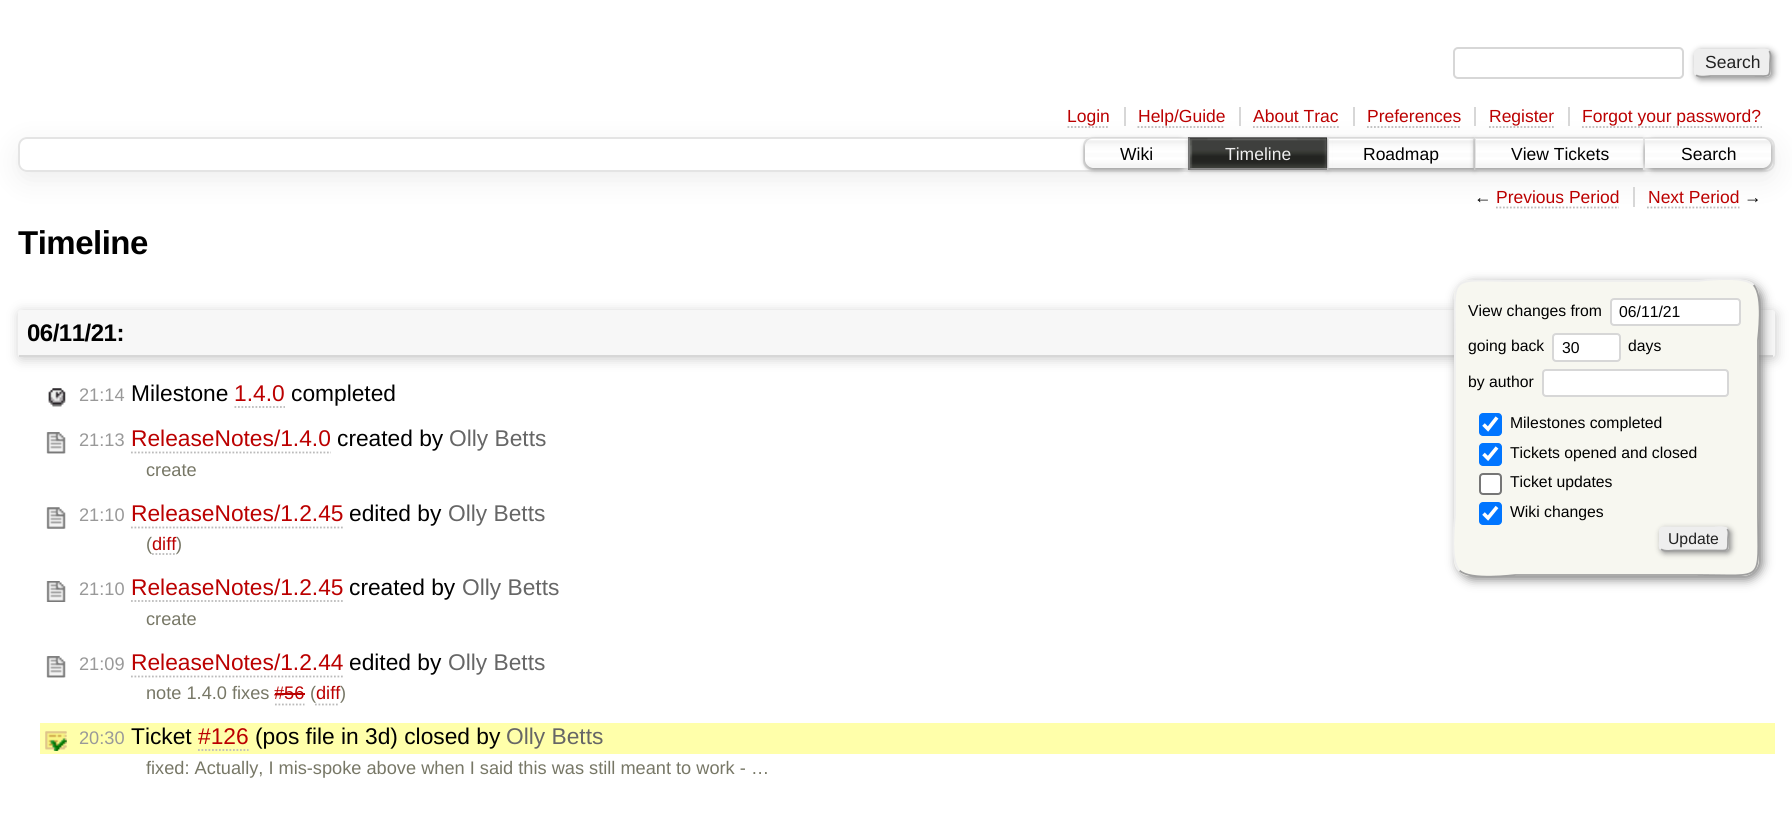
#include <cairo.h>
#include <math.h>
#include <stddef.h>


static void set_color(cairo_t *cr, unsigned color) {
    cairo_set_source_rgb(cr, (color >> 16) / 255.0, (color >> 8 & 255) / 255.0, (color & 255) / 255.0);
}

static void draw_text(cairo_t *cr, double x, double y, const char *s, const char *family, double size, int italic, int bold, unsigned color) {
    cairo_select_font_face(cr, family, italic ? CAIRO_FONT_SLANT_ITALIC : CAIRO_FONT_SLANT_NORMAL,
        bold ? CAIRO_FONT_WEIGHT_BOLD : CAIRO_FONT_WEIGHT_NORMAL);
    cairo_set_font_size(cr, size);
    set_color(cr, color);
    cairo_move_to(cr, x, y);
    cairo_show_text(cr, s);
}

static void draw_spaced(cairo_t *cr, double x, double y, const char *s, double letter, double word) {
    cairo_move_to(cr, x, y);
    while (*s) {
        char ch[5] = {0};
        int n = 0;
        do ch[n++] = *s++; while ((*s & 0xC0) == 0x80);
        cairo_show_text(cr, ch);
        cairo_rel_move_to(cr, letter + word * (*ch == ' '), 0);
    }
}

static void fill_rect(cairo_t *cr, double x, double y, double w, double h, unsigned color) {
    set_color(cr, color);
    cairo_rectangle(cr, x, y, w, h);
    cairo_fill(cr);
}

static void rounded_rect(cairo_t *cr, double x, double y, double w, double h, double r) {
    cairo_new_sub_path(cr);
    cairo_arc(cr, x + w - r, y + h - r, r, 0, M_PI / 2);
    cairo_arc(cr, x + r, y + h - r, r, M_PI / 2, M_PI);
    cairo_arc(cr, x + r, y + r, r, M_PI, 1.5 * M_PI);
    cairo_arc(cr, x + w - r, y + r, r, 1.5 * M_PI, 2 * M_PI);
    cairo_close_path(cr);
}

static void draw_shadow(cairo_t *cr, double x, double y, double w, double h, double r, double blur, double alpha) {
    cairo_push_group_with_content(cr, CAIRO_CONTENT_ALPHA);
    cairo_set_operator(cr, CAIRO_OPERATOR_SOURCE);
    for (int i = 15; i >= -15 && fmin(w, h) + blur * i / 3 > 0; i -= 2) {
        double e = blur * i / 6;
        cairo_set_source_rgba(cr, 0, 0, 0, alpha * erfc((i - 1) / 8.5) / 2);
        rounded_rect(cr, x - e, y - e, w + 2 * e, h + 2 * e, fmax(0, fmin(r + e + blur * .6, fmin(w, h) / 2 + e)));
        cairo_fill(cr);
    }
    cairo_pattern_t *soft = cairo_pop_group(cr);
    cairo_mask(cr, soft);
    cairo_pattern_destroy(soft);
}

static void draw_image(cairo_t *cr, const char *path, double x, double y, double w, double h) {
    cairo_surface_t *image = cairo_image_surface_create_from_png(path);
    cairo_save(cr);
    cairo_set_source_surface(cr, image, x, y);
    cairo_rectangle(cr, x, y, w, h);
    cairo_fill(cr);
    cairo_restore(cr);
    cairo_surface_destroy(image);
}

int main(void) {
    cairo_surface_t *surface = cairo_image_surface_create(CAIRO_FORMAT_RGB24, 1792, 820);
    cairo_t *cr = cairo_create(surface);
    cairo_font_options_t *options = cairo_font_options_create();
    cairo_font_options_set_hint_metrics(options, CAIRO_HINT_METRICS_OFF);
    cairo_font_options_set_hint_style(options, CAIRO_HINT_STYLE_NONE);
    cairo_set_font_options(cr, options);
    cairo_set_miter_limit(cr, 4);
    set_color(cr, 0xFFFFFF);
    cairo_paint(cr);
    rounded_rect(cr, 1454, 48, 229, 30, 4);
    set_color(cr, 0xD7D7D7);
    cairo_stroke(cr);
    set_color(cr, 0x888888);
    draw_shadow(cr, 1696, 51, 77, 28, 5, 3.5, 1);
    set_color(cr, 0xEEEEEE);
    rounded_rect(cr, 1694, 49, 77, 28, 5);
    cairo_fill(cr);
    cairo_new_path(cr);
    cairo_move_to(cr, 1769, 51);
    cairo_curve_to(cr, 1771.5, 53.5, 1770, 60, 1770, 63);
    cairo_curve_to(cr, 1770, 78, 1770.5, 76, 1754.5, 76);
    cairo_line_to(cr, 1710.5, 76);
    cairo_curve_to(cr, 1709.5, 76, 1699, 78, 1696, 75);
    set_color(cr, 0x9F9F9F);
    cairo_set_line_width(cr, 1.8);
    cairo_stroke(cr);
    cairo_new_path(cr);
    cairo_move_to(cr, 1696, 75);
    cairo_curve_to(cr, 1693.5, 72.5, 1695, 66, 1695, 63);
    cairo_curve_to(cr, 1695, 48, 1694.5, 50, 1710.5, 50);
    cairo_line_to(cr, 1754.5, 50);
    cairo_curve_to(cr, 1755.5, 50, 1766, 48, 1769, 51);
    set_color(cr, 0xEEEEEE);
    cairo_stroke(cr);
    draw_text(cr, 1705, 68, "Search", "Liberation Sans", 17.5, 0, 0, 0x222222);
    cairo_save(cr);
    cairo_set_fill_rule(cr, CAIRO_FILL_RULE_EVEN_ODD);
    cairo_new_path(cr);
    cairo_move_to(cr, 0, 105);
    cairo_line_to(cr, 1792, 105);
    cairo_line_to(cr, 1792, 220);
    cairo_line_to(cr, 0, 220);
    cairo_close_path(cr);
    cairo_move_to(cr, 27, 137);
    cairo_line_to(cr, 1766, 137);
    cairo_curve_to(cr, 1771, 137, 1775, 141, 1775, 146);
    cairo_line_to(cr, 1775, 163);
    cairo_curve_to(cr, 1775, 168, 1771, 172, 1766, 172);
    cairo_line_to(cr, 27, 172);
    cairo_curve_to(cr, 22, 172, 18, 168, 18, 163);
    cairo_line_to(cr, 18, 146);
    cairo_curve_to(cr, 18, 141, 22, 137, 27, 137);
    cairo_close_path(cr);
    cairo_clip(cr);
    set_color(cr, 0xEEEEEE);
    draw_shadow(cr, 18, 145, 1757, 35, 9, 13, 1);
    cairo_restore(cr);
    fill_rect(cr, 1124, 107, 2, 19, 0xD7D7D7);
    draw_text(cr, 1067, 122, "Login", "Liberation Sans", 17.5, 0, 0, 0xBB0000);
    cairo_new_path(cr);
    cairo_move_to(cr, 1067.5, 127);
    cairo_line_to(cr, 1109.5, 127);
    set_color(cr, 0xBBBBBB);
    cairo_set_dash(cr, (double[]){1.75, 1.75}, 2, 0);
    cairo_stroke(cr);
    fill_rect(cr, 1239, 107, 2, 19, 0xD7D7D7);
    draw_text(cr, 1138, 122, "Help/Guide", "Liberation Sans", 17.5, 0, 0, 0xBB0000);
    cairo_new_path(cr);
    cairo_move_to(cr, 1137.5, 127);
    cairo_line_to(cr, 1225, 127);
    set_color(cr, 0xBBBBBB);
    cairo_stroke(cr);
    fill_rect(cr, 1353, 107, 2, 19, 0xD7D7D7);
    draw_text(cr, 1253, 122, "About Trac", "Liberation Sans", 17.5, 0, 0, 0xBB0000);
    cairo_new_path(cr);
    cairo_move_to(cr, 1253, 127);
    cairo_line_to(cr, 1339, 127);
    set_color(cr, 0xBBBBBB);
    cairo_stroke(cr);
    fill_rect(cr, 1474, 107, 2, 19, 0xD7D7D7);
    draw_text(cr, 1367, 122, "Preferences", "Liberation Sans", 17.5, 0, 0, 0xBB0000);
    cairo_new_path(cr);
    cairo_move_to(cr, 1367, 127);
    cairo_line_to(cr, 1461, 127);
    set_color(cr, 0xBBBBBB);
    cairo_stroke(cr);
    fill_rect(cr, 1568, 107, 2, 19, 0xD7D7D7);
    draw_text(cr, 1489, 122, "Register", "Liberation Sans", 17.5, 0, 0, 0xBB0000);
    cairo_new_path(cr);
    cairo_move_to(cr, 1489, 127);
    cairo_line_to(cr, 1554, 127);
    set_color(cr, 0xBBBBBB);
    cairo_stroke(cr);
    draw_text(cr, 1582, 122, "Forgot your password?", "Liberation Sans", 17.5, 0, 0, 0xBB0000);
    cairo_new_path(cr);
    cairo_move_to(cr, 1582, 127);
    cairo_line_to(cr, 1762, 127);
    set_color(cr, 0xBBBBBB);
    cairo_stroke(cr);
    rounded_rect(cr, 19, 138, 1755, 33, 8);
    set_color(cr, 0xE4E4E4);
    cairo_set_line_width(cr, 2);
    cairo_set_dash(cr, NULL, 0, 0);
    cairo_stroke(cr);
    set_color(cr, 0xFFFFFF);
    cairo_new_path(cr);
    cairo_move_to(cr, 1092, 137);
    cairo_line_to(cr, 1190, 137);
    cairo_line_to(cr, 1190, 170);
    cairo_line_to(cr, 1092, 170);
    cairo_curve_to(cr, 1087, 170, 1083, 166, 1083, 161);
    cairo_line_to(cr, 1083, 146);
    cairo_curve_to(cr, 1083, 141, 1087, 137, 1092, 137);
    cairo_close_path(cr);
    cairo_fill(cr);
    draw_image(cr, "assets/img1.png", 1084, 140, 104, 28);
    cairo_new_path(cr);
    cairo_move_to(cr, 1092, 138);
    cairo_line_to(cr, 1189, 138);
    cairo_line_to(cr, 1189, 169);
    cairo_line_to(cr, 1092, 169);
    cairo_curve_to(cr, 1087.5, 169, 1084, 165.5, 1084, 161);
    cairo_line_to(cr, 1084, 146);
    cairo_curve_to(cr, 1084, 141.5, 1087.5, 138, 1092, 138);
    cairo_close_path(cr);
    set_color(cr, 0xE4E4E4);
    cairo_stroke(cr);
    cairo_save(cr);
    cairo_set_fill_rule(cr, CAIRO_FILL_RULE_EVEN_ODD);
    cairo_new_path(cr);
    cairo_move_to(cr, 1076, 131);
    cairo_line_to(cr, 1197, 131);
    cairo_line_to(cr, 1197, 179);
    cairo_line_to(cr, 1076, 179);
    cairo_close_path(cr);
    cairo_move_to(cr, 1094, 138);
    cairo_line_to(cr, 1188, 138);
    cairo_line_to(cr, 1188, 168);
    cairo_line_to(cr, 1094, 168);
    cairo_curve_to(cr, 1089, 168, 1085, 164, 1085, 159);
    cairo_line_to(cr, 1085, 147);
    cairo_curve_to(cr, 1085, 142, 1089, 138, 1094, 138);
    cairo_close_path(cr);
    cairo_clip(cr);
    set_color(cr, 0x999999);
    draw_shadow(cr, 1085, 140, 103, 30, 9, 2.5, 1);
    cairo_restore(cr);
    draw_text(cr, 1120, 160, "Wiki", "Liberation Sans", 17.5, 0, 0, 0x000000);
    cairo_rectangle(cr, 1189, 138, 138, 31);
    set_color(cr, 0x666666);
    cairo_stroke(cr);
    set_color(cr, 0x999999);
    draw_shadow(cr, 1190, 140, 137, 30, 0, 2.5, 1);
    fill_rect(cr, 1190, 138, 137, 30, 0x000000);
    draw_image(cr, "assets/img2.png", 1190, 138, 137, 30);
    draw_text(cr, 1225, 160, "Timeline", "Liberation Sans", 17.5, 0, 0, 0xEEEEEE);
    fill_rect(cr, 1329, 139, 3, 29, 0xFFFFFF);
    draw_image(cr, "assets/img3.png", 1326, 140, 147, 28);
    cairo_rectangle(cr, 1328, 138, 146, 31);
    set_color(cr, 0xE4E4E4);
    cairo_stroke(cr);
    cairo_save(cr);
    cairo_set_fill_rule(cr, CAIRO_FILL_RULE_EVEN_ODD);
    cairo_new_path(cr);
    cairo_move_to(cr, 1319, 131);
    cairo_line_to(cr, 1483, 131);
    cairo_line_to(cr, 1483, 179);
    cairo_line_to(cr, 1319, 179);
    cairo_close_path(cr);
    cairo_move_to(cr, 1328, 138);
    cairo_line_to(cr, 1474, 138);
    cairo_line_to(cr, 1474, 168);
    cairo_line_to(cr, 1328, 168);
    cairo_close_path(cr);
    cairo_clip(cr);
    set_color(cr, 0x999999);
    draw_shadow(cr, 1328, 140, 146, 30, 0, 2.5, 1);
    cairo_restore(cr);
    draw_text(cr, 1363, 160, "Roadmap", "Liberation Sans", 17.5, 0, 0, 0x000000);
    fill_rect(cr, 1476, 139, 3, 29, 0xFFFFFF);
    draw_image(cr, "assets/img4.png", 1473, 140, 170, 28);
    cairo_rectangle(cr, 1475, 138, 169, 31);
    set_color(cr, 0xE4E4E4);
    cairo_stroke(cr);
    cairo_save(cr);
    cairo_set_fill_rule(cr, CAIRO_FILL_RULE_EVEN_ODD);
    cairo_new_path(cr);
    cairo_move_to(cr, 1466, 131);
    cairo_line_to(cr, 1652, 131);
    cairo_line_to(cr, 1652, 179);
    cairo_line_to(cr, 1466, 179);
    cairo_close_path(cr);
    cairo_move_to(cr, 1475, 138);
    cairo_line_to(cr, 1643, 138);
    cairo_line_to(cr, 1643, 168);
    cairo_line_to(cr, 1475, 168);
    cairo_close_path(cr);
    cairo_clip(cr);
    set_color(cr, 0x999999);
    draw_shadow(cr, 1475, 140, 168, 30, 0, 2.5, 1);
    cairo_restore(cr);
    draw_text(cr, 1511, 160, "View Tickets", "Liberation Sans", 17.5, 0, 0, 0x000000);
    set_color(cr, 0xFFFFFF);
    cairo_new_path(cr);
    cairo_move_to(cr, 1643, 137);
    cairo_line_to(cr, 1764, 137);
    cairo_curve_to(cr, 1769, 137, 1773, 141, 1773, 146);
    cairo_line_to(cr, 1773, 161);
    cairo_curve_to(cr, 1773, 166, 1769, 170, 1764, 170);
    cairo_line_to(cr, 1643, 170);
    cairo_close_path(cr);
    cairo_fill(cr);
    draw_image(cr, "assets/img5.png", 1645, 140, 127, 28);
    cairo_new_path(cr);
    cairo_move_to(cr, 1644, 138);
    cairo_line_to(cr, 1764, 138);
    cairo_curve_to(cr, 1768.5, 138, 1772, 141.5, 1772, 146);
    cairo_line_to(cr, 1772, 161);
    cairo_curve_to(cr, 1772, 165.5, 1768.5, 169, 1764, 169);
    cairo_line_to(cr, 1644, 169);
    cairo_close_path(cr);
    set_color(cr, 0xE4E4E4);
    cairo_stroke(cr);
    cairo_save(cr);
    cairo_set_fill_rule(cr, CAIRO_FILL_RULE_EVEN_ODD);
    cairo_new_path(cr);
    cairo_move_to(cr, 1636, 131);
    cairo_line_to(cr, 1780, 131);
    cairo_line_to(cr, 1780, 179);
    cairo_line_to(cr, 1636, 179);
    cairo_close_path(cr);
    cairo_move_to(cr, 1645, 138);
    cairo_line_to(cr, 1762, 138);
    cairo_curve_to(cr, 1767, 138, 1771, 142, 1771, 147);
    cairo_line_to(cr, 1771, 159);
    cairo_curve_to(cr, 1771, 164, 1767, 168, 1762, 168);
    cairo_line_to(cr, 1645, 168);
    cairo_close_path(cr);
    cairo_clip(cr);
    set_color(cr, 0x999999);
    draw_shadow(cr, 1645, 140, 126, 30, 9, 2.5, 1);
    cairo_restore(cr);
    draw_text(cr, 1681, 160, "Search", "Liberation Sans", 17.5, 0, 0, 0x000000);
    fill_rect(cr, 1633, 187, 2, 20, 0xD7D7D7);
    draw_text(cr, 1474, 203, "←", "Liberation Sans", 17.5, 0, 0, 0x000000);
    draw_text(cr, 1496, 203, "Previous Period", "Liberation Sans", 17.5, 0, 0, 0xBB0000);
    cairo_new_path(cr);
    cairo_move_to(cr, 1496, 207.5);
    cairo_line_to(cr, 1619, 207.5);
    set_color(cr, 0xBBBBBB);
    cairo_set_line_width(cr, 1.8);
    cairo_set_dash(cr, (double[]){1.75, 1.75}, 2, 0);
    cairo_stroke(cr);
    draw_text(cr, 1648, 203, "Next Period", "Liberation Sans", 17.5, 0, 0, 0xBB0000);
    cairo_new_path(cr);
    cairo_move_to(cr, 1647, 207.5);
    cairo_line_to(cr, 1739.5, 207.5);
    set_color(cr, 0xBBBBBB);
    cairo_stroke(cr);
    draw_text(cr, 1744, 203, "→", "Liberation Sans", 17.5, 0, 0, 0x000000);
    cairo_select_font_face(cr, "Liberation Sans", CAIRO_FONT_SLANT_NORMAL, CAIRO_FONT_WEIGHT_BOLD);
    cairo_set_font_size(cr, 33);
    draw_spaced(cr, 18, 254, "Timeline", -0.5, 0);
    set_color(cr, 0xCCCCCC);
    draw_shadow(cr, 19, 312, 1757, 47, 2.5, 6, 1);
    set_color(cr, 0xF7F7F7);
    rounded_rect(cr, 18, 310, 1757, 47, 2.5);
    cairo_fill(cr);
    fill_rect(cr, 19, 355, 1754, 2, 0xD7D7D7);
    cairo_set_font_size(cr, 24);
    set_color(cr, 0x000000);
    draw_spaced(cr, 27, 341, "06/11/21:", -0.5, 0);
    set_color(cr, 0x777777);
    draw_shadow(cr, 1458, 284, 304, 295, 16, 5.5, 1);
    set_color(cr, 0xF7F7F0);
    rounded_rect(cr, 1454, 280, 305, 296, 16);
    cairo_fill(cr);
    cairo_new_path(cr);
    cairo_move_to(cr, 1753.5, 285);
    cairo_curve_to(cr, 1764, 295.5, 1758, 338, 1758, 340);
    cairo_line_to(cr, 1758, 516);
    cairo_curve_to(cr, 1758, 584, 1766, 575, 1697.5, 575);
    cairo_line_to(cr, 1515.5, 575);
    cairo_curve_to(cr, 1514.5, 575, 1470, 581, 1459.5, 570.5);
    set_color(cr, 0x9F9F9F);
    cairo_set_dash(cr, NULL, 0, 0);
    cairo_stroke(cr);
    cairo_new_path(cr);
    cairo_move_to(cr, 1459.5, 570.5);
    cairo_curve_to(cr, 1449, 560, 1455, 518, 1455, 516);
    cairo_line_to(cr, 1455, 340);
    cairo_curve_to(cr, 1455, 271.5, 1447, 281, 1515.5, 281);
    cairo_line_to(cr, 1697.5, 281);
    cairo_curve_to(cr, 1698.5, 281, 1743, 274.5, 1753.5, 285);
    set_color(cr, 0xEEEEEE);
    cairo_stroke(cr);
    draw_text(cr, 1468, 316, "View changes from", "Liberation Sans", 15.75, 0, 0, 0x000000);
    set_color(cr, 0xFFFFFF);
    rounded_rect(cr, 1611, 299, 129, 26, 3);
    cairo_fill_preserve(cr);
    set_color(cr, 0xD7D7D7);
    cairo_set_line_width(cr, 2);
    cairo_stroke(cr);
    draw_text(cr, 1619, 317, "06/11/21", "Liberation Sans", 15.75, 0, 0, 0x000000);
    draw_text(cr, 1468, 351, "going back", "Liberation Sans", 15.75, 0, 0, 0x000000);
    set_color(cr, 0xFFFFFF);
    rounded_rect(cr, 1553, 334, 67, 27, 3);
    cairo_fill_preserve(cr);
    set_color(cr, 0xD7D7D7);
    cairo_stroke(cr);
    draw_text(cr, 1562, 353, "30", "Liberation Sans", 15.75, 0, 0, 0x000000);
    draw_text(cr, 1628, 351, "days", "Liberation Sans", 15.75, 0, 0, 0x000000);
    draw_text(cr, 1468, 387, "by author", "Liberation Sans", 15.75, 0, 0, 0x000000);
    set_color(cr, 0xFFFFFF);
    rounded_rect(cr, 1543, 370, 185, 26, 3);
    cairo_fill_preserve(cr);
    set_color(cr, 0xD7D7D7);
    cairo_stroke(cr);
    set_color(cr, 0x0075FF);
    rounded_rect(cr, 1479, 413, 23, 23, 4);
    cairo_fill(cr);
    cairo_new_path(cr);
    cairo_move_to(cr, 1483.5, 424.5);
    cairo_line_to(cr, 1488, 429);
    cairo_line_to(cr, 1497, 417.5);
    set_color(cr, 0xFFFFFF);
    cairo_set_line_width(cr, 3.6);
    cairo_stroke(cr);
    draw_text(cr, 1510, 428, "Milestones completed", "Liberation Sans", 15.75, 0, 0, 0x000000);
    set_color(cr, 0x0075FF);
    rounded_rect(cr, 1479, 443, 23, 23, 4);
    cairo_fill(cr);
    cairo_new_path(cr);
    cairo_move_to(cr, 1483.5, 454);
    cairo_line_to(cr, 1488, 458.5);
    cairo_line_to(cr, 1497, 447.5);
    set_color(cr, 0xFFFFFF);
    cairo_stroke(cr);
    draw_text(cr, 1510, 458, "Tickets opened and closed", "Liberation Sans", 15.75, 0, 0, 0x000000);
    set_color(cr, 0xFFFFFF);
    rounded_rect(cr, 1480, 474, 21, 20, 3);
    cairo_fill_preserve(cr);
    set_color(cr, 0x767676);
    cairo_set_line_width(cr, 2);
    cairo_stroke(cr);
    draw_text(cr, 1510, 487, "Ticket updates", "Liberation Sans", 15.75, 0, 0, 0x000000);
    set_color(cr, 0x0075FF);
    rounded_rect(cr, 1479, 502, 23, 23, 4);
    cairo_fill(cr);
    cairo_new_path(cr);
    cairo_move_to(cr, 1483.5, 513.5);
    cairo_line_to(cr, 1488, 518);
    cairo_line_to(cr, 1497, 507);
    set_color(cr, 0xFFFFFF);
    cairo_set_line_width(cr, 3.6);
    cairo_stroke(cr);
    draw_text(cr, 1510, 517, "Wiki changes", "Liberation Sans", 15.75, 0, 0, 0x000000);
    set_color(cr, 0x888888);
    draw_shadow(cr, 1661, 529, 70, 24, 4, 3, 1);
    set_color(cr, 0xEEEEEE);
    rounded_rect(cr, 1659, 527, 70, 24, 4);
    cairo_fill(cr);
    cairo_new_path(cr);
    cairo_move_to(cr, 1727, 529);
    cairo_curve_to(cr, 1729.5, 531, 1728, 536, 1728, 539);
    cairo_curve_to(cr, 1728, 552.5, 1728.5, 550.5, 1714, 550.5);
    cairo_line_to(cr, 1674, 550.5);
    cairo_curve_to(cr, 1673.5, 550.5, 1663.5, 552, 1661, 549);
    set_color(cr, 0x9F9F9F);
    cairo_set_line_width(cr, 1.8);
    cairo_stroke(cr);
    cairo_new_path(cr);
    cairo_move_to(cr, 1661, 549);
    cairo_curve_to(cr, 1658.5, 547, 1660, 542, 1660, 539);
    cairo_curve_to(cr, 1660, 525.5, 1659.5, 527.5, 1674, 527.5);
    cairo_line_to(cr, 1714, 527.5);
    cairo_curve_to(cr, 1714.5, 527.5, 1724.5, 526, 1727, 529);
    set_color(cr, 0xEEEEEE);
    cairo_stroke(cr);
    draw_text(cr, 1668, 544, "Update", "Liberation Sans", 15.75, 0, 0, 0x222222);
    draw_image(cr, "assets/img6.png", 48, 388, 18, 19);
    draw_image(cr, "assets/img7.png", 48, 388, 18, 19);
    draw_text(cr, 79, 401, "21:14", "Liberation Sans", 18.2, 0, 0, 0x999999);
    draw_text(cr, 131, 401, "Milestone", "Liberation Sans", 22.75, 0, 0, 0x000000);
    draw_text(cr, 234, 401, "1.4.0", "Liberation Sans", 22.75, 0, 0, 0xBB0000);
    cairo_new_path(cr);
    cairo_move_to(cr, 234.5, 407);
    cairo_line_to(cr, 285, 407);
    set_color(cr, 0xBBBBBB);
    cairo_set_dash(cr, (double[]){1.75, 1.75}, 2, 0);
    cairo_stroke(cr);
    draw_text(cr, 291, 401, "completed", "Liberation Sans", 22.75, 0, 0, 0x000000);
    draw_image(cr, "assets/img8.png", 46, 432, 20, 22);
    draw_image(cr, "assets/img9.png", 46, 432, 20, 22);
    draw_text(cr, 79, 446, "21:13", "Liberation Sans", 18.2, 0, 0, 0x999999);
    draw_text(cr, 131, 446, "ReleaseNotes/1.4.0", "Liberation Sans", 22.75, 0, 0, 0xBB0000);
    cairo_new_path(cr);
    cairo_move_to(cr, 131, 452.5);
    cairo_line_to(cr, 331, 452.5);
    set_color(cr, 0xBBBBBB);
    cairo_stroke(cr);
    draw_text(cr, 337, 446, "created by", "Liberation Sans", 22.75, 0, 0, 0x000000);
    draw_text(cr, 449, 446, "Olly Betts", "Liberation Sans", 22.75, 0, 0, 0x666666);
    draw_text(cr, 146, 476, "create", "Liberation Sans", 18.2, 0, 0, 0x777766);
    draw_image(cr, "assets/img10.png", 46, 507, 20, 22);
    draw_image(cr, "assets/img11.png", 46, 507, 20, 22);
    draw_text(cr, 79, 521, "21:10", "Liberation Sans", 18.2, 0, 0, 0x999999);
    draw_text(cr, 131, 521, "ReleaseNotes/1.2.45", "Liberation Sans", 22.75, 0, 0, 0xBB0000);
    cairo_new_path(cr);
    cairo_move_to(cr, 131, 527.5);
    cairo_line_to(cr, 343, 527.5);
    set_color(cr, 0xBBBBBB);
    cairo_stroke(cr);
    draw_text(cr, 349, 521, "edited by", "Liberation Sans", 22.75, 0, 0, 0x000000);
    draw_text(cr, 448, 521, "Olly Betts", "Liberation Sans", 22.75, 0, 0, 0x666666);
    draw_text(cr, 146, 550, "(", "Liberation Sans", 18.2, 0, 0, 0x777766);
    draw_text(cr, 152, 550, "diff", "Liberation Sans", 18.2, 0, 0, 0xBB0000);
    cairo_new_path(cr);
    cairo_move_to(cr, 152, 554);
    cairo_line_to(cr, 177, 554);
    set_color(cr, 0xBBBBBB);
    cairo_stroke(cr);
    draw_text(cr, 176, 550, ")", "Liberation Sans", 18.2, 0, 0, 0x777766);
    draw_image(cr, "assets/img12.png", 46, 581, 20, 21);
    draw_image(cr, "assets/img13.png", 46, 581, 20, 21);
    draw_text(cr, 79, 595, "21:10", "Liberation Sans", 18.2, 0, 0, 0x999999);
    draw_text(cr, 131, 595, "ReleaseNotes/1.2.45", "Liberation Sans", 22.75, 0, 0, 0xBB0000);
    cairo_new_path(cr);
    cairo_move_to(cr, 131, 601);
    cairo_line_to(cr, 343, 601);
    set_color(cr, 0xBBBBBB);
    cairo_stroke(cr);
    draw_text(cr, 349, 595, "created by", "Liberation Sans", 22.75, 0, 0, 0x000000);
    draw_text(cr, 462, 595, "Olly Betts", "Liberation Sans", 22.75, 0, 0, 0x666666);
    draw_text(cr, 146, 625, "create", "Liberation Sans", 18.2, 0, 0, 0x777766);
    draw_image(cr, "assets/img8.png", 46, 656, 20, 22);
    draw_image(cr, "assets/img9.png", 46, 656, 20, 22);
    draw_text(cr, 79, 670, "21:09", "Liberation Sans", 18.2, 0, 0, 0x999999);
    draw_text(cr, 131, 670, "ReleaseNotes/1.2.44", "Liberation Sans", 22.75, 0, 0, 0xBB0000);
    cairo_new_path(cr);
    cairo_move_to(cr, 131, 676.5);
    cairo_line_to(cr, 343, 676.5);
    set_color(cr, 0xBBBBBB);
    cairo_stroke(cr);
    draw_text(cr, 349, 670, "edited by", "Liberation Sans", 22.75, 0, 0, 0x000000);
    draw_text(cr, 448, 670, "Olly Betts", "Liberation Sans", 22.75, 0, 0, 0x666666);
    draw_text(cr, 146, 699, "note 1.4.0 fixes", "Liberation Sans", 18.2, 0, 0, 0x777766);
    draw_text(cr, 274, 699, "#56", "Liberation Sans", 18.2, 0, 0, 0xBB0000);
    cairo_new_path(cr);
    cairo_move_to(cr, 275, 704.5);
    cairo_line_to(cr, 304.5, 704.5);
    set_color(cr, 0xBBBBBB);
    cairo_stroke(cr);
    fill_rect(cr, 275, 693, 30, 2, 0xBB0000);
    draw_text(cr, 310, 699, "(", "Liberation Sans", 18.2, 0, 0, 0x777766);
    draw_text(cr, 316, 699, "diff", "Liberation Sans", 18.2, 0, 0, 0xBB0000);
    cairo_new_path(cr);
    cairo_move_to(cr, 315, 704.5);
    cairo_line_to(cr, 339.5, 704.5);
    set_color(cr, 0xBBBBBB);
    cairo_stroke(cr);
    draw_text(cr, 340, 699, ")", "Liberation Sans", 18.2, 0, 0, 0x777766);
    fill_rect(cr, 40, 723, 1735, 31, 0xFFFFAA);
    draw_image(cr, "assets/img14.png", 45, 731, 22, 20);
    draw_image(cr, "assets/img15.png", 45, 731, 22, 20);
    draw_text(cr, 79, 744, "20:30", "Liberation Sans", 18.2, 0, 0, 0x999999);
    draw_text(cr, 131, 744, "Ticket", "Liberation Sans", 22.75, 0, 0, 0x000000);
    draw_text(cr, 198, 744, "#126", "Liberation Sans", 22.75, 0, 0, 0xBB0000);
    cairo_new_path(cr);
    cairo_move_to(cr, 198, 750);
    cairo_line_to(cr, 248.5, 750);
    set_color(cr, 0xBBBBBB);
    cairo_stroke(cr);
    draw_text(cr, 255, 744, "(pos file in 3d) closed by", "Liberation Sans", 22.75, 0, 0, 0x000000);
    draw_text(cr, 506, 744, "Olly Betts", "Liberation Sans", 22.75, 0, 0, 0x666666);
    draw_text(cr, 146, 774, "fixed: Actually, I mis-spoke above when I said this was still meant to work - …", "Liberation Sans", 18.2, 0, 0, 0x777766);
    cairo_surface_write_to_png(surface, "output.png");
    cairo_font_options_destroy(options);
    cairo_destroy(cr);
    cairo_surface_destroy(surface);
    return 0;
}
